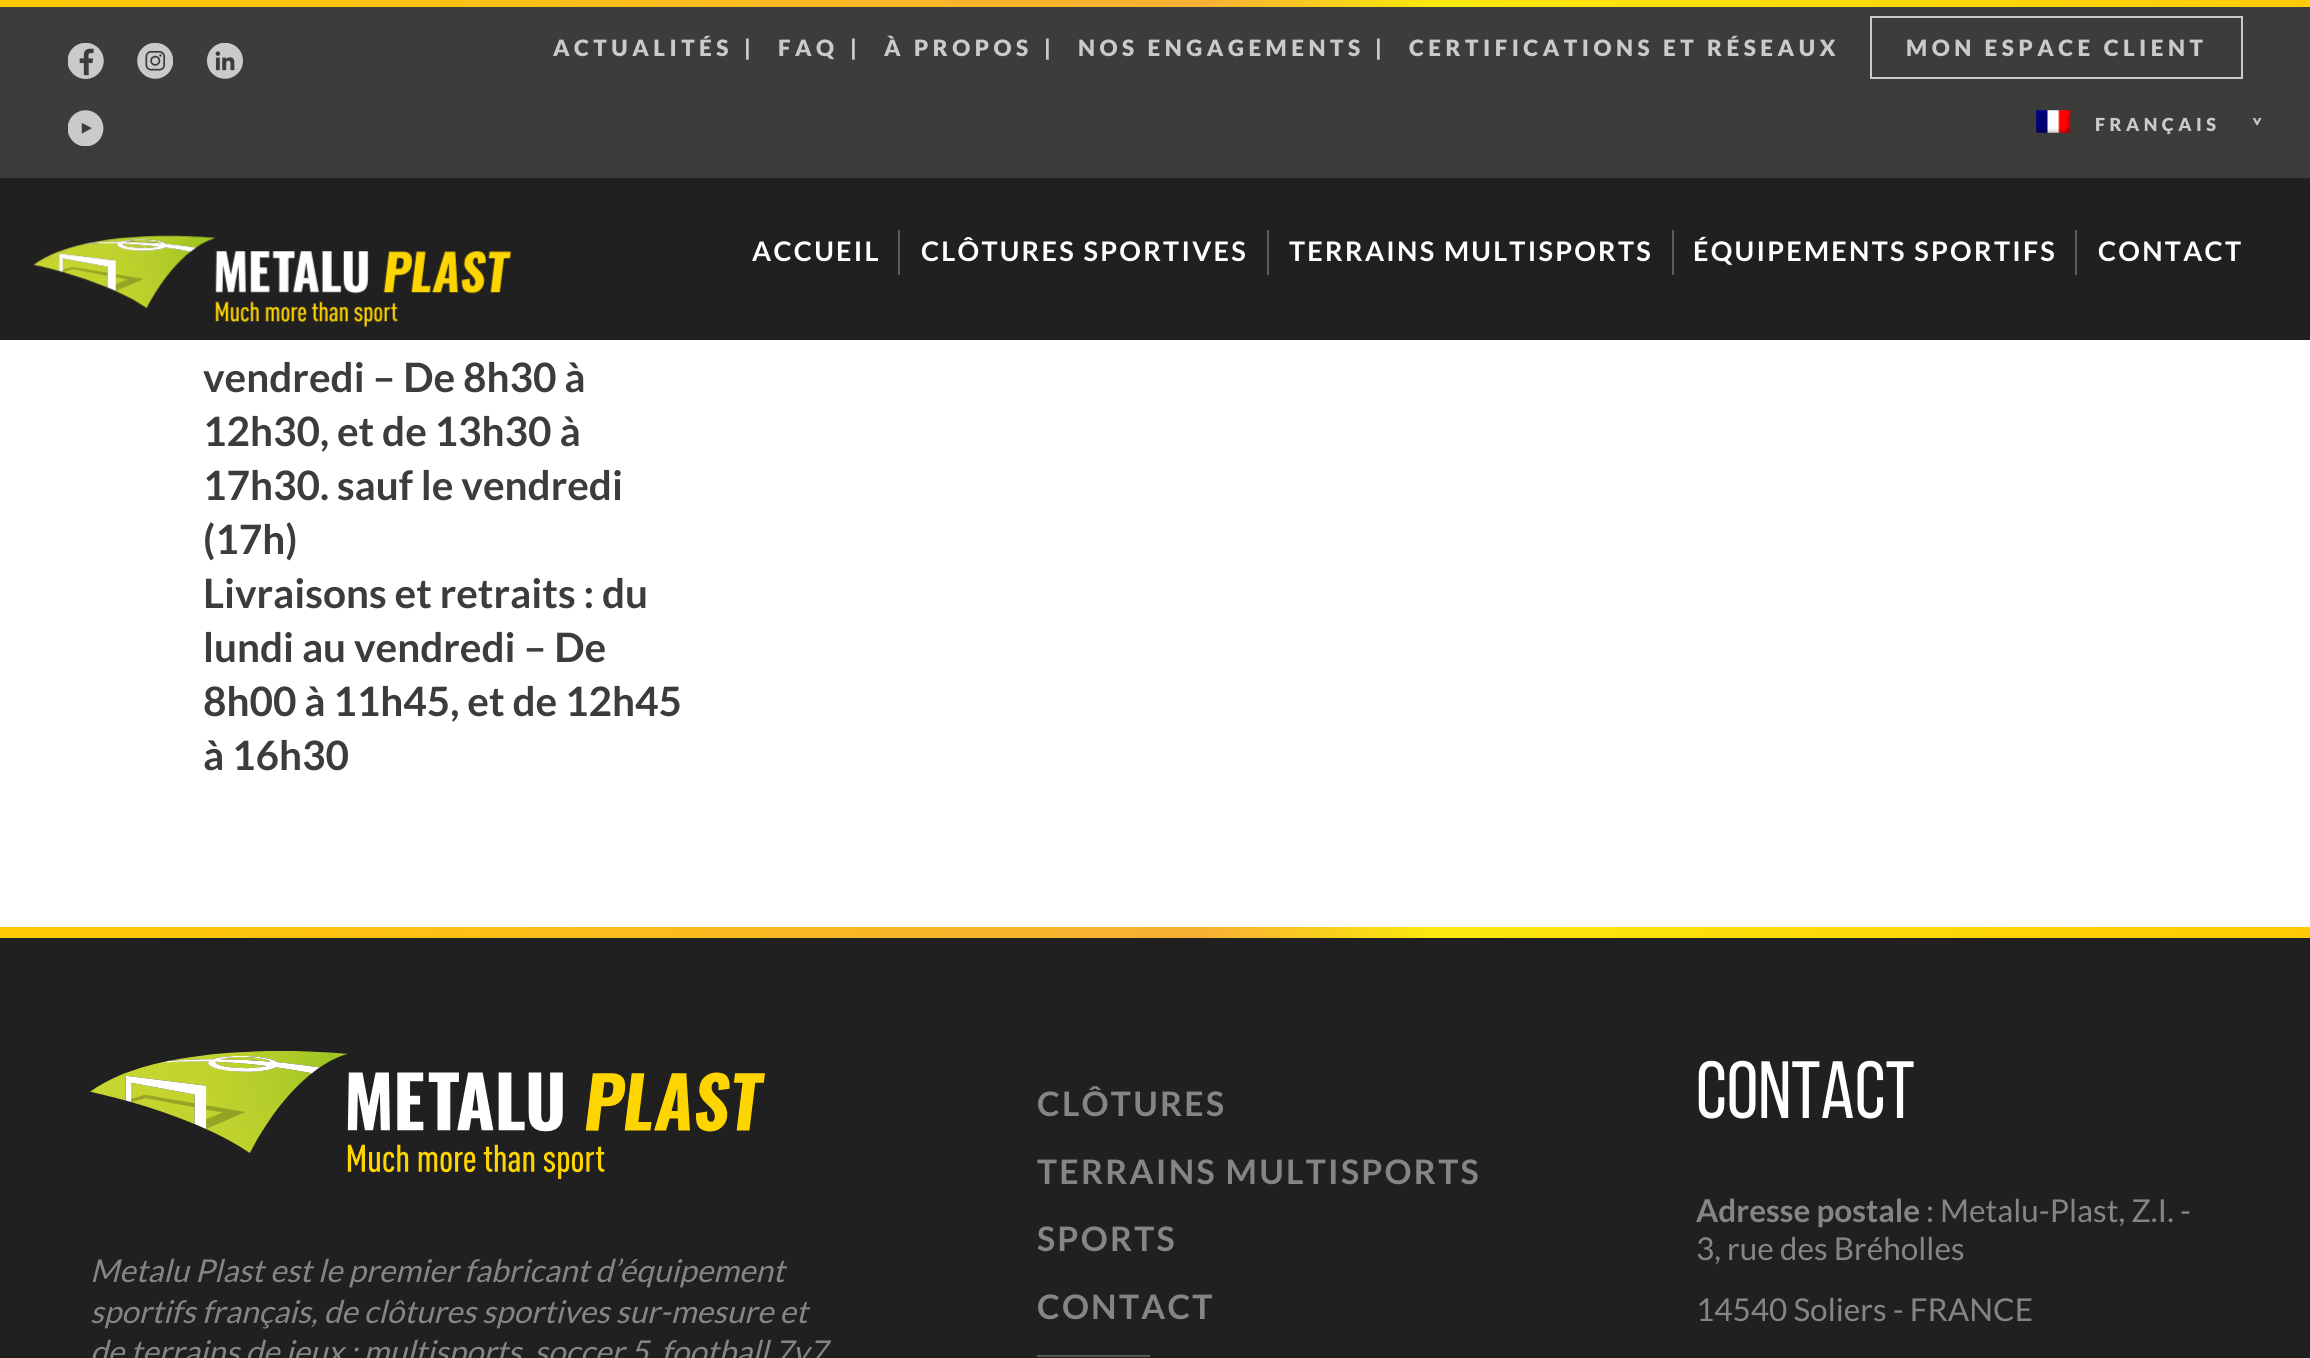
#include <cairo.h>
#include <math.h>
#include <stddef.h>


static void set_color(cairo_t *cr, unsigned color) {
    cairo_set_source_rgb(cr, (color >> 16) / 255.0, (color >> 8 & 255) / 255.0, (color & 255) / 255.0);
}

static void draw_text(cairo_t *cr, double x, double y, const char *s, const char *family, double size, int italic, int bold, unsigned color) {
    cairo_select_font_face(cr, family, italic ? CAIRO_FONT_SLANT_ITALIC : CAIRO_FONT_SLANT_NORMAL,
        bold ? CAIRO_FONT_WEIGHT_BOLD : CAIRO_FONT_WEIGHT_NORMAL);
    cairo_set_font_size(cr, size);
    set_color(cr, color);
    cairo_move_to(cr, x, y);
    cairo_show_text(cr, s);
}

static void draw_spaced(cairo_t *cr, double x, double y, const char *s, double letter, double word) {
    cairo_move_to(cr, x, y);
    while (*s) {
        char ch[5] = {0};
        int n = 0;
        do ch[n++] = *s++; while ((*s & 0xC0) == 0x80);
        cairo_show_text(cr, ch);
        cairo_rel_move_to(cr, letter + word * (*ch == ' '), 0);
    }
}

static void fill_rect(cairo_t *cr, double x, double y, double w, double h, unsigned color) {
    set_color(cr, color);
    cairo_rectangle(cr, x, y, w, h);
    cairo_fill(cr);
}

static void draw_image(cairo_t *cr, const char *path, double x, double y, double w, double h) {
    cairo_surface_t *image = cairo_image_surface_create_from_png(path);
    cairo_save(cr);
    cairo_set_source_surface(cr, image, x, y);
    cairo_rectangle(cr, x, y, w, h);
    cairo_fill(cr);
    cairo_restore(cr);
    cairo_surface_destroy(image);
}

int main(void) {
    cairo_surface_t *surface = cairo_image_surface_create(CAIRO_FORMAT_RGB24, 2310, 1358);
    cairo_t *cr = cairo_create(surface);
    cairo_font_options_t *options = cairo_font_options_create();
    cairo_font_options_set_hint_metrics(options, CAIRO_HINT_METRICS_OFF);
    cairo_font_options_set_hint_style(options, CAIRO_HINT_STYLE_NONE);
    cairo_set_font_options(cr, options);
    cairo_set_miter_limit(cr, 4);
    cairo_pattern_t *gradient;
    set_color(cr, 0xFFFFFF);
    cairo_paint(cr);
    gradient = cairo_pattern_create_linear(0, 3.4, 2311, 3.4);
    cairo_pattern_add_color_stop_rgba(gradient, 0, 1, 0.792, 0.012, 1);
    cairo_pattern_add_color_stop_rgba(gradient, 0.52, 0.969, 0.69, 0.2, 1);
    cairo_pattern_add_color_stop_rgba(gradient, 0.62, 0.984, 0.914, 0.051, 1);
    cairo_pattern_add_color_stop_rgba(gradient, 1, 1, 0.792, 0.012, 1);
    cairo_set_source(cr, gradient);
    cairo_pattern_destroy(gradient);
    cairo_rectangle(cr, 0, 0, 2310, 7);
    cairo_fill(cr);
    fill_rect(cr, 0, 7, 2310, 171, 0x3C3C3B);
    draw_image(cr, "assets/img1.png", 68, 43, 36, 36);
    draw_image(cr, "assets/img2.png", 137, 43, 36, 36);
    draw_image(cr, "assets/img3.png", 207, 43, 36, 36);
    draw_image(cr, "assets/img4.png", 68, 110, 36, 36);
    cairo_select_font_face(cr, "Lato Black", CAIRO_FONT_SLANT_NORMAL, CAIRO_FONT_WEIGHT_NORMAL);
    cairo_set_font_size(cr, 22.5);
    set_color(cr, 0xCBCACA);
    draw_spaced(cr, 553, 56, "ACTUALITÉS", 4.5, 0);
    draw_spaced(cr, 744, 56, "|", 4.5, 0);
    draw_spaced(cr, 778, 56, "FAQ", 4.5, 0);
    draw_spaced(cr, 850, 56, "|", 4.5, 0);
    draw_spaced(cr, 884, 56, "À PROPOS", 4.5, 0);
    draw_spaced(cr, 1044, 56, "|", 4.5, 0);
    draw_spaced(cr, 1078, 56, "NOS ENGAGEMENTS", 4.5, 0);
    draw_spaced(cr, 1375, 56, "|", 4.5, 0);
    draw_spaced(cr, 1409, 56, "CERTIFICATIONS ET RÉSEAUX", 4.5, 0);
    cairo_rectangle(cr, 1871, 17, 371, 61);
    cairo_stroke(cr);
    draw_spaced(cr, 1906, 56, "MON ESPACE CLIENT", 4.5, 0);
    draw_image(cr, "assets/img5.png", 2036, 110, 35, 23);
    cairo_set_font_size(cr, 18);
    draw_spaced(cr, 2095, 131, "FRANÇAIS", 4.5, 0);
    cairo_save(cr);
    cairo_translate(cr, 2251, 116);
    cairo_rotate(cr, 90 * M_PI / 180);
    draw_spaced(cr, 0, 0, ">", 4.5, 0);
    cairo_restore(cr);
    fill_rect(cr, 0, 178, 2310, 162, 0x202020);
    draw_image(cr, "assets/img6.png", 33, 235, 478, 93);
    cairo_select_font_face(cr, "Lato", CAIRO_FONT_SLANT_NORMAL, CAIRO_FONT_WEIGHT_BOLD);
    cairo_set_font_size(cr, 27);
    set_color(cr, 0xFFFFFF);
    draw_spaced(cr, 752, 261, "ACCUEIL", 2.25, 0);
    fill_rect(cr, 898, 230, 2, 45, 0x5B5B5B);
    set_color(cr, 0xFFFFFF);
    draw_spaced(cr, 921, 261, "CLÔTURES SPORTIVES", 2.25, 0);
    fill_rect(cr, 1267, 230, 2, 45, 0x5B5B5B);
    set_color(cr, 0xFFFFFF);
    draw_spaced(cr, 1289, 261, "TERRAINS MULTISPORTS", 2.25, 0);
    fill_rect(cr, 1672, 230, 2, 45, 0x5B5B5B);
    set_color(cr, 0xFFFFFF);
    draw_spaced(cr, 1693, 261, "ÉQUIPEMENTS SPORTIFS", 2.25, 0);
    fill_rect(cr, 2075, 230, 2, 45, 0x5B5B5B);
    set_color(cr, 0xFFFFFF);
    draw_spaced(cr, 2098, 261, "CONTACT", 2.25, 0);
    draw_text(cr, 203, 392, "vendredi – De 8h30 à", "Lato", 40.5, 0, 1, 0x3C3C3B);
    draw_text(cr, 203, 446, "12h30, et de 13h30 à", "Lato", 40.5, 0, 1, 0x3C3C3B);
    draw_text(cr, 203, 500, "17h30. sauf le vendredi", "Lato", 40.5, 0, 1, 0x3C3C3B);
    draw_text(cr, 203, 554, "(17h)", "Lato", 40.5, 0, 1, 0x3C3C3B);
    draw_text(cr, 203, 608, "Livraisons et retraits : du", "Lato", 40.5, 0, 1, 0x3C3C3B);
    draw_text(cr, 203, 662, "lundi au vendredi – De", "Lato", 40.5, 0, 1, 0x3C3C3B);
    draw_text(cr, 203, 716, "8h00 à 11h45, et de 12h45", "Lato", 40.5, 0, 1, 0x3C3C3B);
    draw_text(cr, 203, 770, "à 16h30", "Lato", 40.5, 0, 1, 0x3C3C3B);
    gradient = cairo_pattern_create_linear(0, 933, 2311, 933);
    cairo_pattern_add_color_stop_rgba(gradient, 0, 1, 0.792, 0.012, 1);
    cairo_pattern_add_color_stop_rgba(gradient, 0.52, 0.969, 0.69, 0.2, 1);
    cairo_pattern_add_color_stop_rgba(gradient, 0.62, 0.984, 0.914, 0.051, 1);
    cairo_pattern_add_color_stop_rgba(gradient, 1, 1, 0.792, 0.012, 1);
    cairo_set_source(cr, gradient);
    cairo_pattern_destroy(gradient);
    cairo_rectangle(cr, 0, 927, 2310, 11);
    cairo_fill(cr);
    fill_rect(cr, 0, 938, 2310, 420, 0x202020);
    draw_image(cr, "assets/img7.png", 90, 1051, 675, 128);
    draw_text(cr, 90, 1282, "Metalu Plast est le premier fabricant d’équipement", "Lato", 31.5, 1, 0, 0x858585);
    draw_text(cr, 90, 1323, "sportifs français, de clôtures sportives sur-mesure et", "Lato", 31.5, 1, 0, 0x858585);
    draw_text(cr, 90, 1363, "de terrains de jeux : multisports, soccer 5, football 7v7,", "Lato", 31.5, 1, 0, 0x858585);
    cairo_select_font_face(cr, "Lato", CAIRO_FONT_SLANT_NORMAL, CAIRO_FONT_WEIGHT_BOLD);
    cairo_set_font_size(cr, 33.75);
    draw_spaced(cr, 1037, 1116, "CLÔTURES", 2.25, 0);
    draw_spaced(cr, 1037, 1184, "TERRAINS MULTISPORTS", 2.25, 0);
    draw_spaced(cr, 1037, 1251, "SPORTS", 2.25, 0);
    draw_spaced(cr, 1037, 1319, "CONTACT", 2.25, 0);
    fill_rect(cr, 1037, 1355, 113, 2, 0x575756);
    draw_text(cr, 1696, 1118, "Contact", "Bebas Neue", 81, 0, 0, 0xFFFFFF);
    draw_text(cr, 1696, 1222, "Adresse postale", "Lato", 31.5, 0, 1, 0x858585);
    draw_text(cr, 1926, 1222, ": Metalu-Plast, Z.I. -", "Lato", 31.5, 0, 0, 0x858585);
    draw_text(cr, 1696, 1260, "3, rue des Bréholles", "Lato", 31.5, 0, 0, 0x858585);
    draw_text(cr, 1696, 1321, "14540 Soliers - FRANCE", "Lato", 31.5, 0, 0, 0x858585);
    cairo_surface_write_to_png(surface, "output.png");
    cairo_font_options_destroy(options);
    cairo_destroy(cr);
    cairo_surface_destroy(surface);
    return 0;
}
